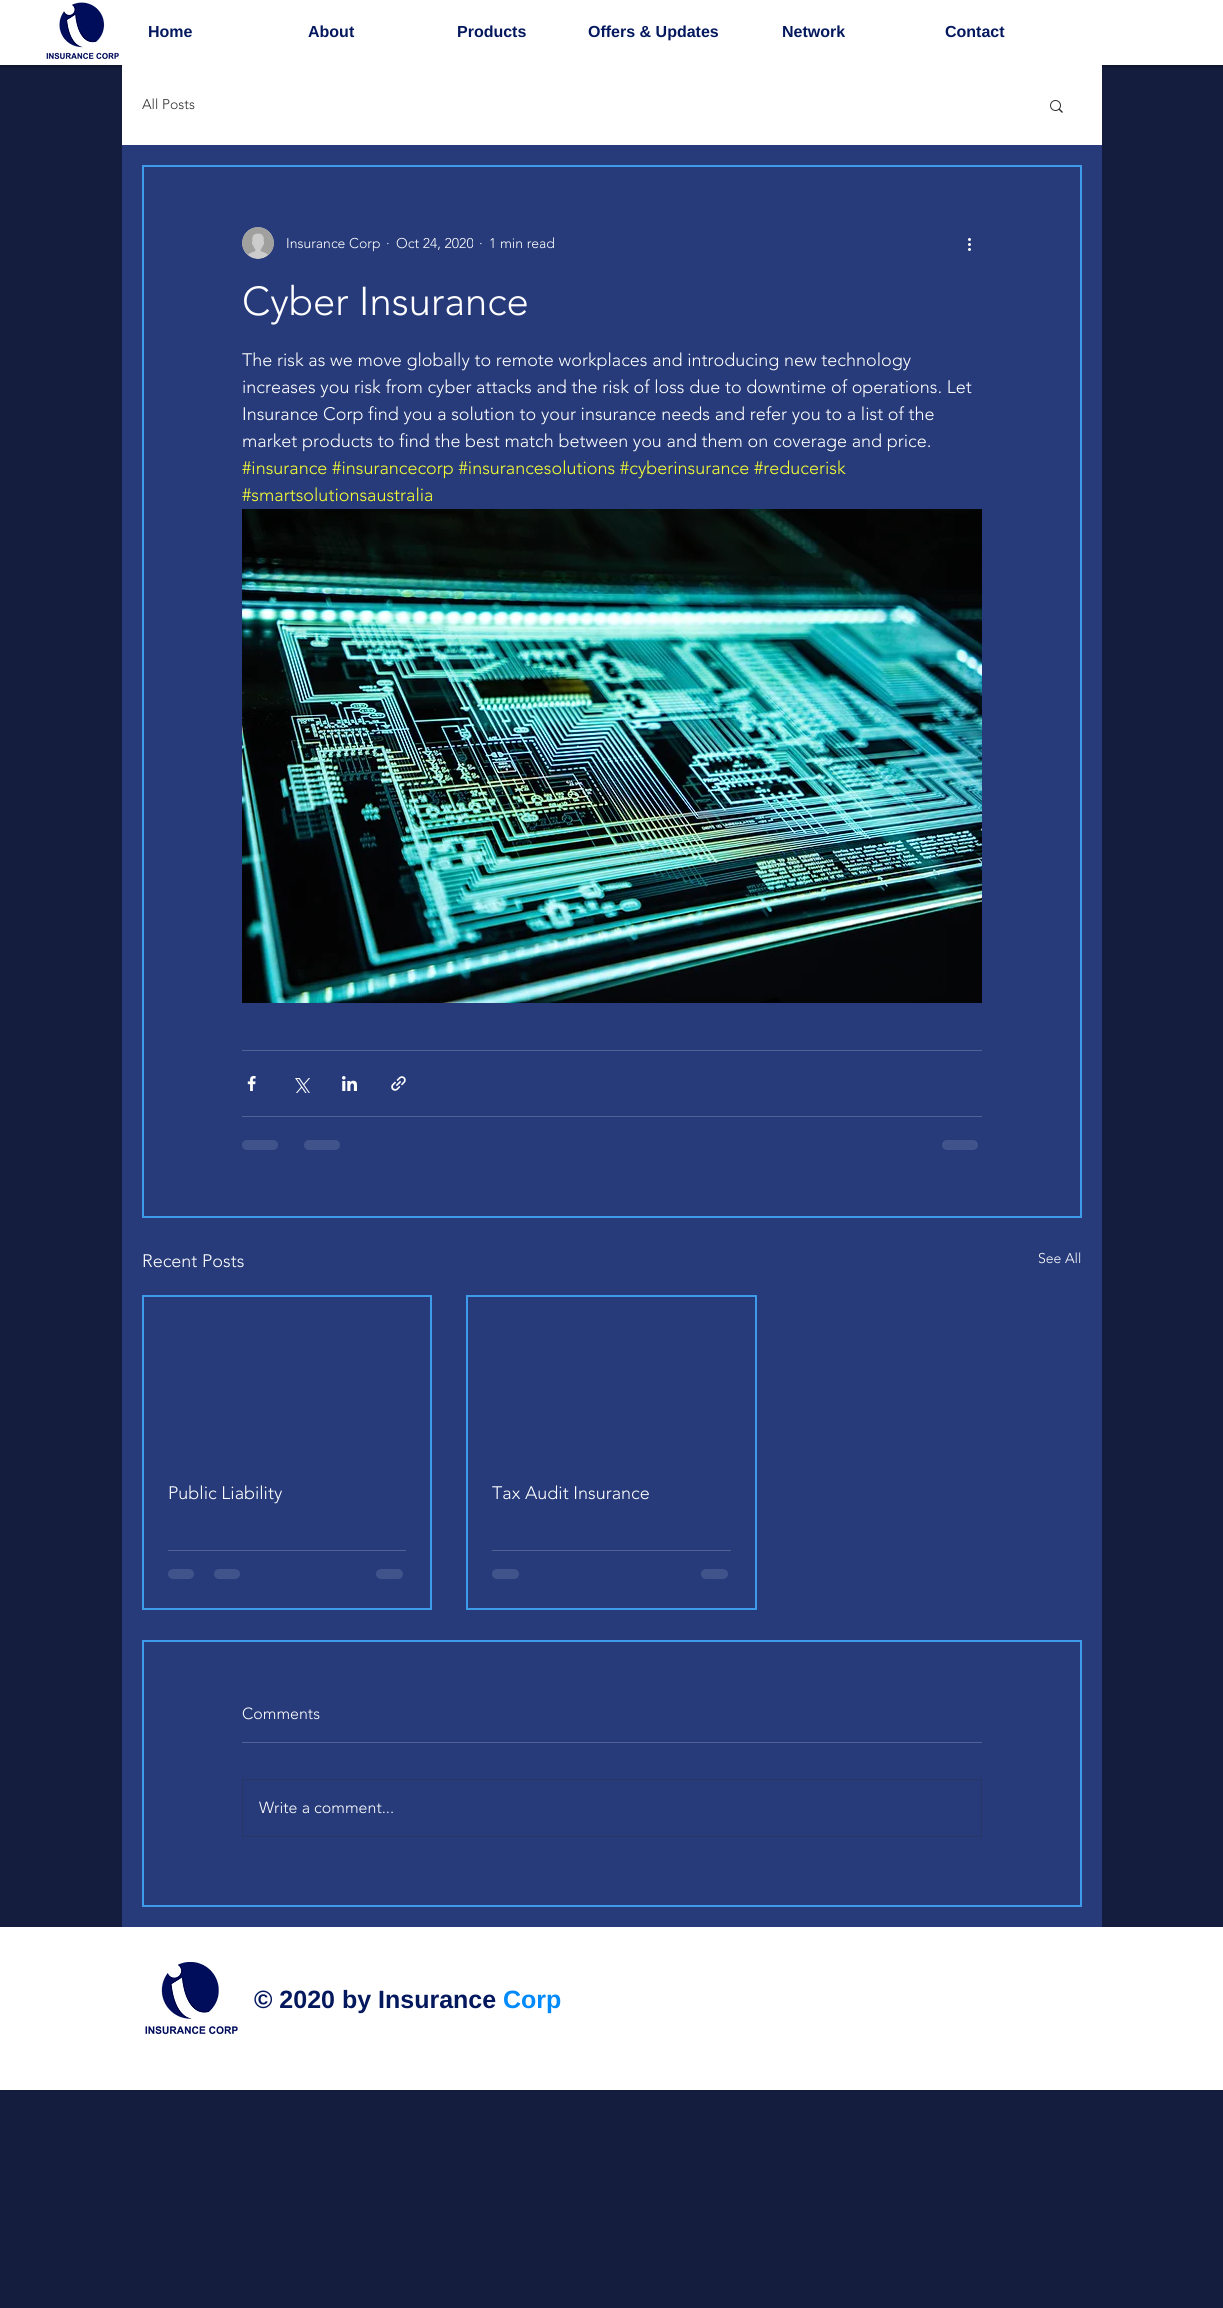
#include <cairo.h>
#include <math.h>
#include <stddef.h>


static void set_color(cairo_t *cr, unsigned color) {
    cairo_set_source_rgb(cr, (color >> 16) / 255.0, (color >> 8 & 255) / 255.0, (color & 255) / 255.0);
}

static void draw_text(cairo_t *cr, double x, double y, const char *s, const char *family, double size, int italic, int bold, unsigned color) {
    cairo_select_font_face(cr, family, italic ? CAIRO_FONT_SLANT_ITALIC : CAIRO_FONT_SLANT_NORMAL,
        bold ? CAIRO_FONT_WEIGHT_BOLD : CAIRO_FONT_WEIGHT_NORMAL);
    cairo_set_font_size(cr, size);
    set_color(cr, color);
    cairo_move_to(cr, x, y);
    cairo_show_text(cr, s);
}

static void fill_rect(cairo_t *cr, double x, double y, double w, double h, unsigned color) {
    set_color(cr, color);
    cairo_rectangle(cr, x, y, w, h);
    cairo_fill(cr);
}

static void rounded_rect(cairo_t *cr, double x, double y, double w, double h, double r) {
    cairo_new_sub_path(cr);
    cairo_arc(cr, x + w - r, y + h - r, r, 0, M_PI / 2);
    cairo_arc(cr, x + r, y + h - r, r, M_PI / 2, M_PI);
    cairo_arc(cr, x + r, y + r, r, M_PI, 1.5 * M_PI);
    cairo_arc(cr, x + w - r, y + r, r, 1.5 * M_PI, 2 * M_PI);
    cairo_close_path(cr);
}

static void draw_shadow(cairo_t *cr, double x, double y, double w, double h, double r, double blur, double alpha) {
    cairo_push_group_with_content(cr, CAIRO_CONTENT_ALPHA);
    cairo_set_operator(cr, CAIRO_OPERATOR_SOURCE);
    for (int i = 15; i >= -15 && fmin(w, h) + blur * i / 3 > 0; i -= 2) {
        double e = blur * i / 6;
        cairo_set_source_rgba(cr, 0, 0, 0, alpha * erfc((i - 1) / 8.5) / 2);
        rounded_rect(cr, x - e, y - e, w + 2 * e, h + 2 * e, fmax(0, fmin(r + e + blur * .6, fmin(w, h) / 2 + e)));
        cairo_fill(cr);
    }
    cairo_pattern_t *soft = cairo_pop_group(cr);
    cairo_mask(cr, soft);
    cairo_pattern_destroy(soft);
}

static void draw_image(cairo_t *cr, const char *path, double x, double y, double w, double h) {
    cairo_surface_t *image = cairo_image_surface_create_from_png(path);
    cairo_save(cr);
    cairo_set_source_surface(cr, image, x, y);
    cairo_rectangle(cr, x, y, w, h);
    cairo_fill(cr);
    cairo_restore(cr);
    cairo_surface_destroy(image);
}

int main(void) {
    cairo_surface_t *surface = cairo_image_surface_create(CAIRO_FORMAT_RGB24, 1223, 2308);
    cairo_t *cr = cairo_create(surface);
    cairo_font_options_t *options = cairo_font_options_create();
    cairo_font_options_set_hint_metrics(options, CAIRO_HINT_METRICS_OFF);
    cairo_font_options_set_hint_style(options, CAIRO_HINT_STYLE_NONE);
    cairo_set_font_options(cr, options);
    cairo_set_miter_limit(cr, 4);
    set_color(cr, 0x141D3D);
    cairo_paint(cr);
    set_color(cr, 0x000000);
    draw_shadow(cr, 0, 0, 1223, 65, 0, 2.5, 0.7);
    fill_rect(cr, 0, 0, 1223, 65, 0xFFFFFF);
    draw_image(cr, "assets/img1.png", 46, 2, 73, 58);
    draw_text(cr, 148, 37, "Home", "Liberation Sans", 16, 0, 1, 0x04185E);
    draw_text(cr, 308, 37, "About", "Liberation Sans", 16, 0, 1, 0x04185E);
    draw_text(cr, 457, 37, "Products", "Liberation Sans", 16, 0, 1, 0x04185E);
    draw_text(cr, 588, 37, "Offers & Updates", "Liberation Sans", 16, 0, 1, 0x04185E);
    draw_text(cr, 782, 37, "Network", "Liberation Sans", 16, 0, 1, 0x04185E);
    draw_text(cr, 945, 37, "Contact", "Liberation Sans", 16, 0, 1, 0x04185E);
    fill_rect(cr, 122, 145, 980, 1782, 0x273B7B);
    fill_rect(cr, 122, 65, 980, 80, 0xFFFFFF);
    draw_text(cr, 142, 109, "All Posts", "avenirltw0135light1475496 Light", 14, 0, 0, 0x2F2E2E);
    draw_image(cr, "assets/img2.png", 1050, 100, 13, 13);
    cairo_rectangle(cr, 143, 166, 938, 1051);
    set_color(cr, 0x3D9BE9);
    cairo_stroke(cr);
    draw_image(cr, "assets/img3.png", 242, 227, 32, 32);
    draw_text(cr, 286, 248, "Insurance Corp", "avenirltw0135light1475496 Light", 14, 0, 0, 0xFFFFFF);
    draw_text(cr, 386, 248, "·", "avenirltw0135light1475496 Light", 14, 0, 0, 0xFFFFFF);
    draw_text(cr, 396, 248, "Oct 24, 2020", "avenirltw0135light1475496 Light", 14, 0, 0, 0xFFFFFF);
    draw_text(cr, 479, 248, "·", "avenirltw0135light1475496 Light", 14, 0, 0, 0xFFFFFF);
    draw_text(cr, 489, 248, "1 min read", "avenirltw0135light1475496 Light", 14, 0, 0, 0xFFFFFF);
    draw_image(cr, "assets/img4.png", 968, 238, 3, 13);
    draw_text(cr, 242, 315, "Cyber Insurance", "avenirltw0135light1475496 Light", 40, 0, 0, 0xFFFFFF);
    draw_text(cr, 242, 366, "The risk as we move globally to remote workplaces and introducing new technology", "avenirltw0135light1475496 Light", 18, 0, 0, 0xFFFFFF);
    draw_text(cr, 242, 393, "increases you risk from cyber attacks and the risk of loss due to downtime of operations. Let", "avenirltw0135light1475496 Light", 18, 0, 0, 0xFFFFFF);
    draw_text(cr, 242, 420, "Insurance Corp find you a solution to your insurance needs and refer you to a list of the", "avenirltw0135light1475496 Light", 18, 0, 0, 0xFFFFFF);
    draw_text(cr, 242, 447, "market products to find the best match between you and them on coverage and price.", "avenirltw0135light1475496 Light", 18, 0, 0, 0xFFFFFF);
    draw_text(cr, 242, 474, "#insurance #insurancecorp #insurancesolutions #cyberinsurance #reducerisk", "avenirltw0135light1475496 Light", 18, 0, 0, 0xF6FD33);
    draw_text(cr, 242, 501, "#smartsolutionsaustralia", "avenirltw0135light1475496 Light", 18, 0, 0, 0xF6FD33);
    draw_image(cr, "assets/img5.png", 242, 509, 740, 494);
    fill_rect(cr, 242, 1050, 740, 1, 0x526295);
    draw_image(cr, "assets/img6.png", 247, 1076, 9, 15);
    draw_image(cr, "assets/img7.png", 295, 1078, 15, 15);
    draw_image(cr, "assets/img8.png", 342, 1076, 15, 15);
    draw_image(cr, "assets/img9.png", 391, 1076, 15, 15);
    fill_rect(cr, 242, 1116, 740, 1, 0x526295);
    set_color(cr, 0x41538B);
    rounded_rect(cr, 242, 1140, 36, 10, 5);
    cairo_fill(cr);
    rounded_rect(cr, 304, 1140, 36, 10, 5);
    cairo_fill(cr);
    rounded_rect(cr, 942, 1140, 36, 10, 5);
    cairo_fill(cr);
    draw_text(cr, 142, 1267, "Recent Posts", "avenirltw0135light1475496 Light", 18, 0, 0, 0xFFFFFF);
    draw_text(cr, 1038, 1263, "See All", "avenirltw0135light1475496 Light", 14, 0, 0, 0xFFFFFF);
    cairo_rectangle(cr, 143, 1296, 288, 313);
    set_color(cr, 0x3D9BE9);
    cairo_stroke(cr);
    draw_text(cr, 168, 1499, "Public Liability", "avenirltw0135light1475496 Light", 18, 0, 0, 0xFFFFFF);
    fill_rect(cr, 168, 1550, 238, 1, 0x526295);
    set_color(cr, 0x41538B);
    rounded_rect(cr, 168, 1569, 26, 10, 5);
    cairo_fill(cr);
    rounded_rect(cr, 214, 1569, 26, 10, 5);
    cairo_fill(cr);
    rounded_rect(cr, 376, 1569, 27, 10, 5);
    cairo_fill(cr);
    cairo_rectangle(cr, 467, 1296, 289, 313);
    set_color(cr, 0x3D9BE9);
    cairo_stroke(cr);
    draw_text(cr, 492, 1499, "Tax Audit Insurance", "avenirltw0135light1475496 Light", 18, 0, 0, 0xFFFFFF);
    fill_rect(cr, 492, 1550, 239, 1, 0x526295);
    set_color(cr, 0x41538B);
    rounded_rect(cr, 492, 1569, 27, 10, 5);
    cairo_fill(cr);
    rounded_rect(cr, 701, 1569, 27, 10, 5);
    cairo_fill(cr);
    cairo_rectangle(cr, 143, 1641, 938, 265);
    set_color(cr, 0x3D9BE9);
    cairo_stroke(cr);
    draw_text(cr, 242, 1719, "Comments", "avenirltw0135light1475496 Light", 16, 0, 0, 0xFFFFFF);
    fill_rect(cr, 242, 1742, 740, 1, 0x526295);
    cairo_rectangle(cr, 242.5, 1779.5, 739, 57);
    set_color(cr, 0x293764);
    cairo_set_line_width(cr, 1);
    cairo_stroke(cr);
    draw_text(cr, 259, 1813, "Write a comment...", "avenirltw0135light1475496 Light", 16, 0, 0, 0xFFFFFF);
    fill_rect(cr, 0, 1927, 1223, 163, 0xFFFFFF);
    draw_image(cr, "assets/img10.png", 145, 1962, 93, 73);
    draw_text(cr, 254, 2008, "© 2020 by Insurance", "Liberation Sans", 25, 0, 1, 0x04185E);
    draw_text(cr, 503, 2008, "Corp", "Liberation Sans", 25, 0, 1, 0x008AFC);
    cairo_surface_write_to_png(surface, "output.png");
    cairo_font_options_destroy(options);
    cairo_destroy(cr);
    cairo_surface_destroy(surface);
    return 0;
}
